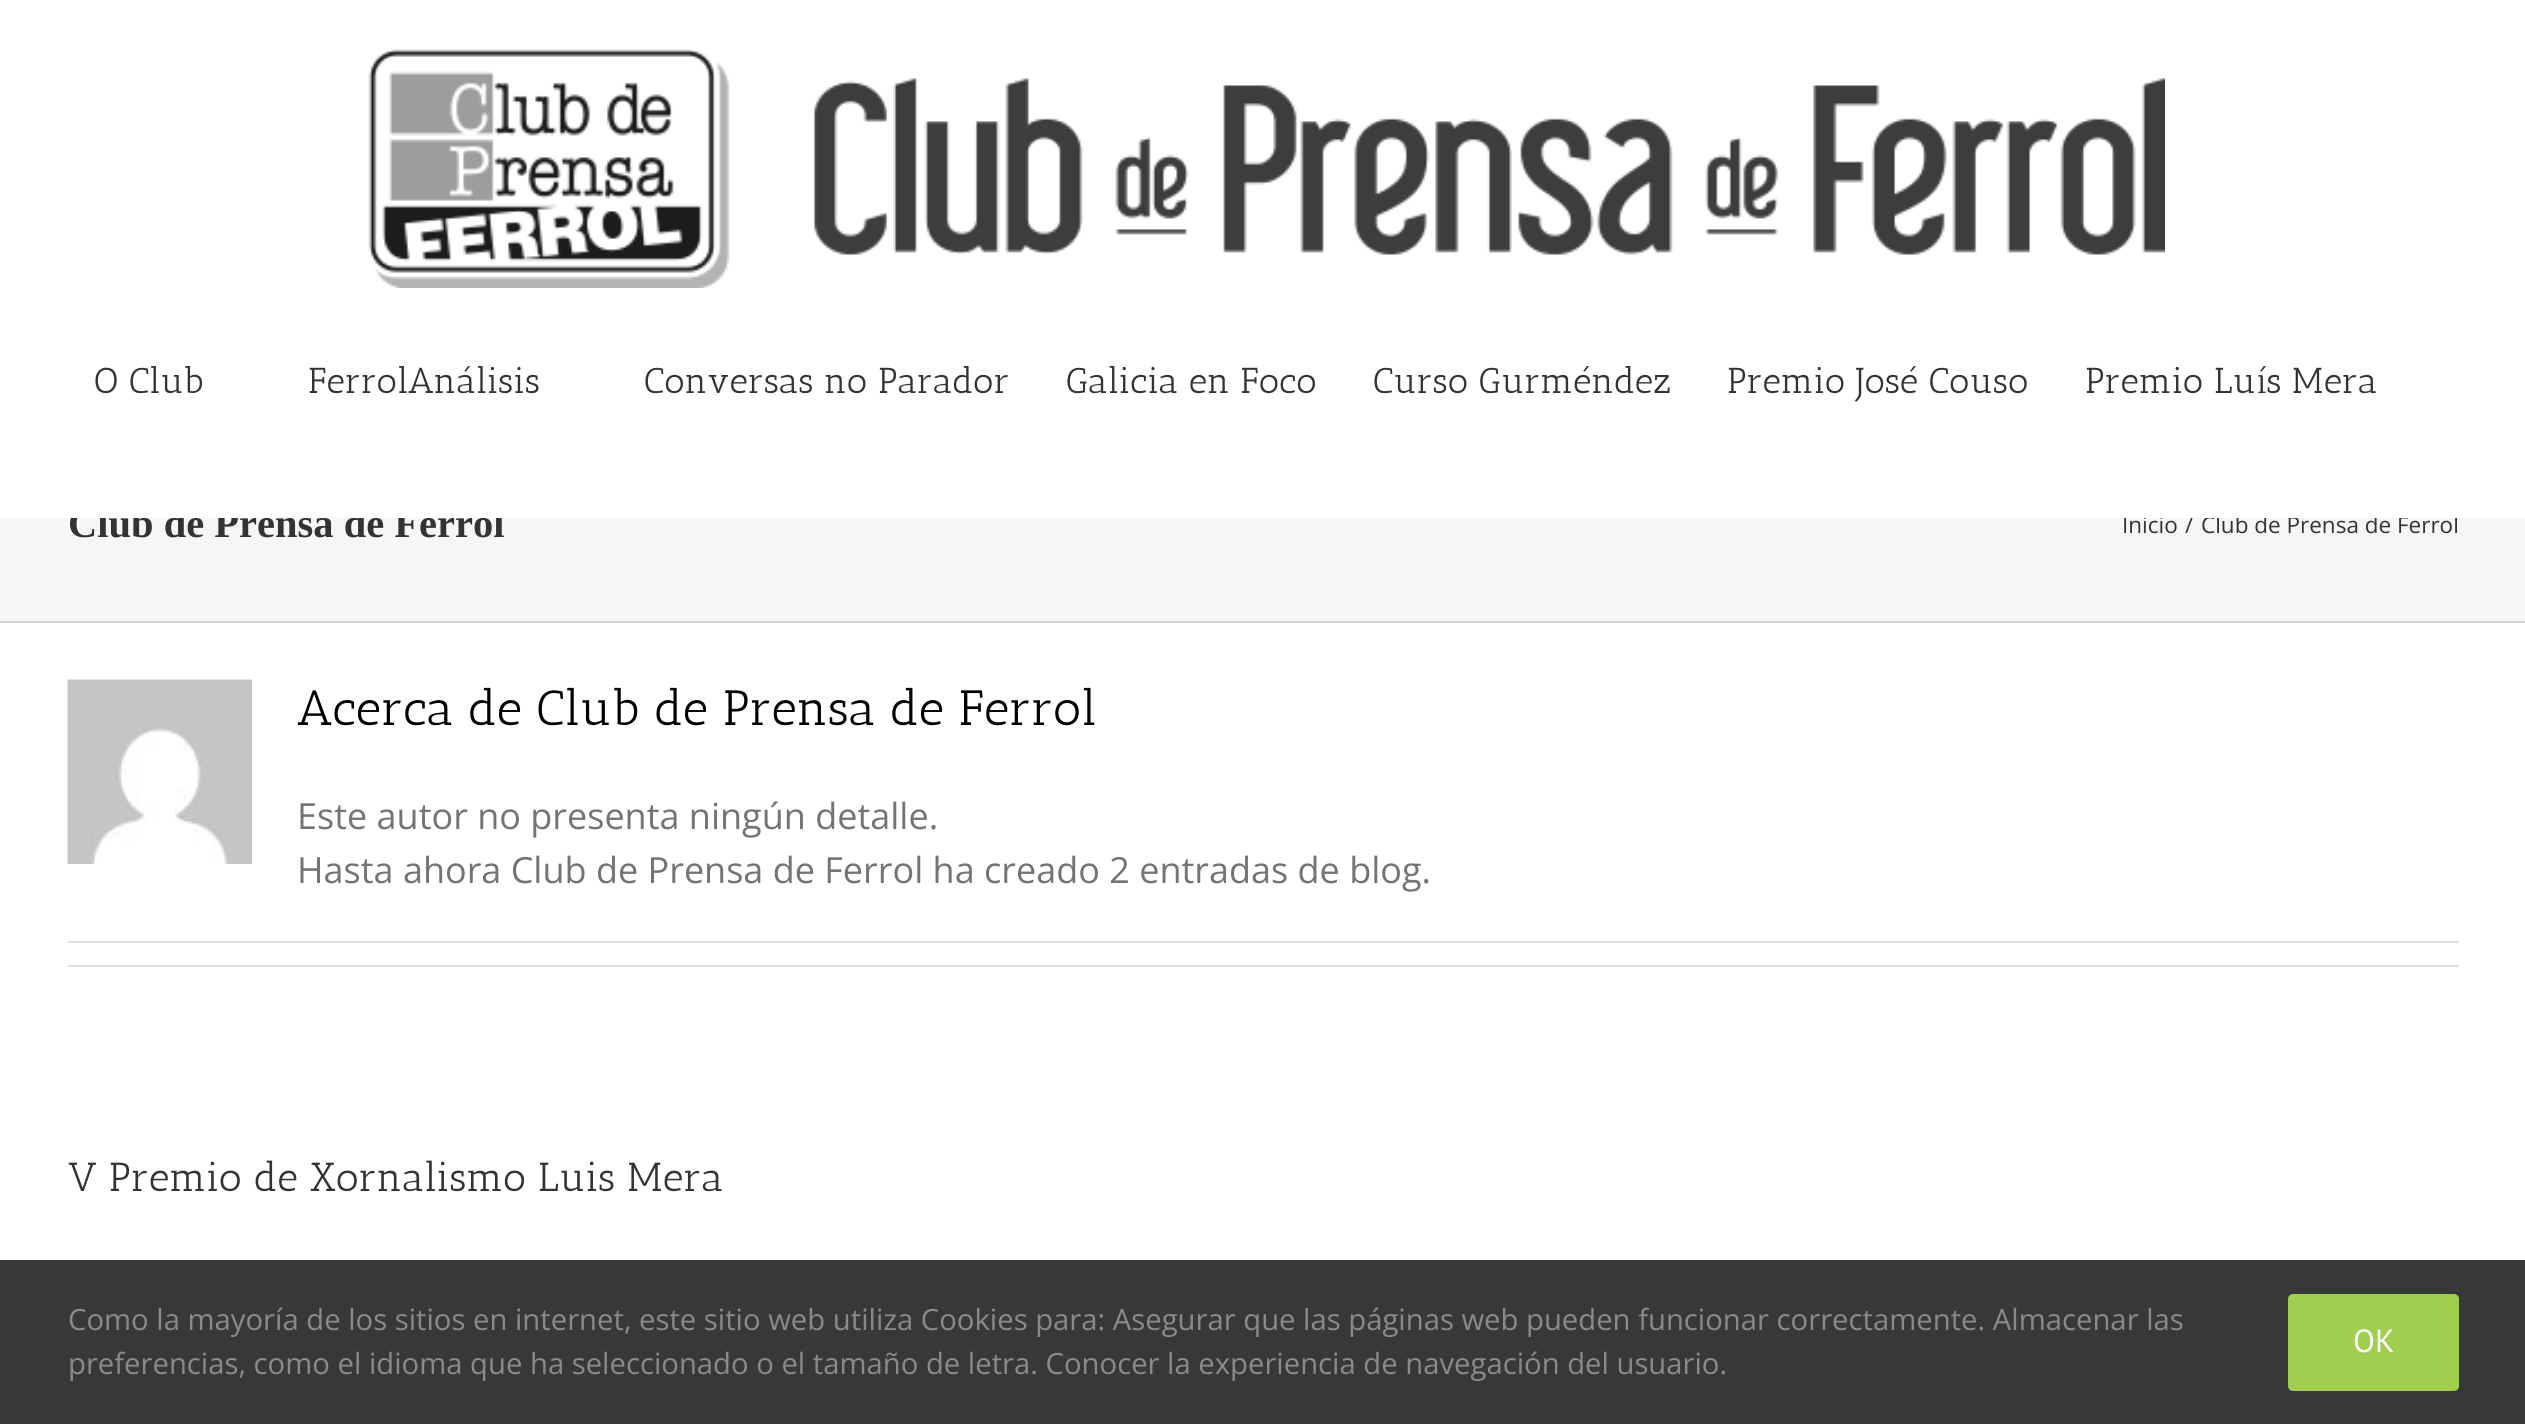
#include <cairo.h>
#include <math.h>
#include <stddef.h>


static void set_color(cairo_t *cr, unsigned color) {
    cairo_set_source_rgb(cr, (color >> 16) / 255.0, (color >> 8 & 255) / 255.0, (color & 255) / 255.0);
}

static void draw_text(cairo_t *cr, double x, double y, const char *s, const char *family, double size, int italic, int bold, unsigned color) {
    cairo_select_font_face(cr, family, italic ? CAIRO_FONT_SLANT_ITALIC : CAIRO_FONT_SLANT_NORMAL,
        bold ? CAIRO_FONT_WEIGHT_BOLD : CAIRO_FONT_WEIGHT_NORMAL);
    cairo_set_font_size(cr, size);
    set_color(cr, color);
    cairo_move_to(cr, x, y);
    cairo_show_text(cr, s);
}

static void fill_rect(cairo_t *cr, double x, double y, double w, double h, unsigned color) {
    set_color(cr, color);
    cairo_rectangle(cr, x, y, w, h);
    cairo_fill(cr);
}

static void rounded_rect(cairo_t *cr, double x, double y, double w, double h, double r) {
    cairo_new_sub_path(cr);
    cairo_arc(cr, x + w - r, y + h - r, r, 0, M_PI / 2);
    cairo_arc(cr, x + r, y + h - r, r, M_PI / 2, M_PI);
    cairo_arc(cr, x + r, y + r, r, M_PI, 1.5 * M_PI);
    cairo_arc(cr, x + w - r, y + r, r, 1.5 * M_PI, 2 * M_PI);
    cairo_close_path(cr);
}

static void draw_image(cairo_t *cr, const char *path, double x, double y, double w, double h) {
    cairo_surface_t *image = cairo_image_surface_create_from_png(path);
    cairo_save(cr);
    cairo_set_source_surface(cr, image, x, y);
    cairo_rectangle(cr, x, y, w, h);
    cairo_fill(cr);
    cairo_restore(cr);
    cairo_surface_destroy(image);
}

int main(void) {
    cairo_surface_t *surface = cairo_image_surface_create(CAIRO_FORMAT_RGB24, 2525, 1424);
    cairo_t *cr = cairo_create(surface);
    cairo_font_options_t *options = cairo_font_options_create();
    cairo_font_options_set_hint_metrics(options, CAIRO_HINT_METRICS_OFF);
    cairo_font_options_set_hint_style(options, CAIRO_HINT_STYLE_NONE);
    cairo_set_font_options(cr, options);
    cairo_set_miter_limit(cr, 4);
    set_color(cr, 0xFFFFFF);
    cairo_paint(cr);
    draw_image(cr, "assets/img1.png", 368, 49, 1797, 239);
    fill_rect(cr, 0, 518, 2525, 103, 0xF6F6F6);
    draw_text(cr, 68, 537, "Club de Prensa de Ferrol", "Liberation Serif", 40.5, 0, 1, 0x333333);
    draw_text(cr, 2122, 533, "Inicio", "Open Sans", 22.5, 0, 0, 0x333333);
    draw_text(cr, 2185, 533, "/", "Open Sans", 22.5, 0, 0, 0x333333);
    draw_text(cr, 2201, 533, "Club de Prensa de Ferrol", "Open Sans", 22.5, 0, 0, 0x333333);
    fill_rect(cr, 70, 508, 2388, 10, 0xFFFFFF);
    draw_text(cr, 94, 393, "O Club", "Antic Slab", 36, 0, 0, 0x333333);
    draw_text(cr, 308, 393, "FerrolAnálisis", "Antic Slab", 36, 0, 0, 0x333333);
    draw_text(cr, 644, 393, "Conversas no Parador", "Antic Slab", 36, 0, 0, 0x333333);
    draw_text(cr, 1066, 393, "Galicia en Foco", "Antic Slab", 36, 0, 0, 0x333333);
    draw_text(cr, 1373, 393, "Curso Gurméndez", "Antic Slab", 36, 0, 0, 0x333333);
    draw_text(cr, 1727, 393, "Premio José Couso", "Antic Slab", 36, 0, 0, 0x333333);
    draw_text(cr, 2085, 393, "Premio Luís Mera", "Antic Slab", 36, 0, 0, 0x333333);
    fill_rect(cr, 0, 621, 2525, 2, 0xD2D3D4);
    draw_image(cr, "assets/img2.png", 67, 679, 185, 185);
    draw_text(cr, 297, 725, "Acerca de Club de Prensa de Ferrol", "Antic Slab", 49.5, 0, 0, 0x000000);
    draw_text(cr, 297, 829, "Este autor no presenta ningún detalle.", "Open Sans", 36, 0, 0, 0x747474);
    draw_text(cr, 297, 883, "Hasta ahora Club de Prensa de Ferrol ha creado 2 entradas de blog.", "Open Sans", 36, 0, 0, 0x747474);
    fill_rect(cr, 68, 941, 2391, 2, 0xE0DEDE);
    fill_rect(cr, 68, 965, 2391, 2, 0xE0DEDE);
    draw_text(cr, 68, 1191, "V Premio de Xornalismo Luis Mera", "Antic Slab", 40.5, 0, 0, 0x333333);
    fill_rect(cr, 0, 1260, 2525, 164, 0x363839);
    draw_text(cr, 68, 1330, "Como la mayoría de los sitios en internet, este sitio web utiliza Cookies para: Asegurar que las páginas web pueden funcionar correctamente. Almacenar las", "Open Sans", 29.25, 0, 0, 0x8C8989);
    draw_text(cr, 68, 1374, "preferencias, como el idioma que ha seleccionado o el tamaño de letra. Conocer la experiencia de navegación del usuario.", "Open Sans", 29.25, 0, 0, 0x8C8989);
    set_color(cr, 0xA0CE4E);
    rounded_rect(cr, 2288, 1294, 171, 97, 5);
    cairo_fill(cr);
    draw_text(cr, 2353, 1352, "OK", "PT Sans", 32, 0, 0, 0xFFFFFF);
    cairo_surface_write_to_png(surface, "output.png");
    cairo_font_options_destroy(options);
    cairo_destroy(cr);
    cairo_surface_destroy(surface);
    return 0;
}
